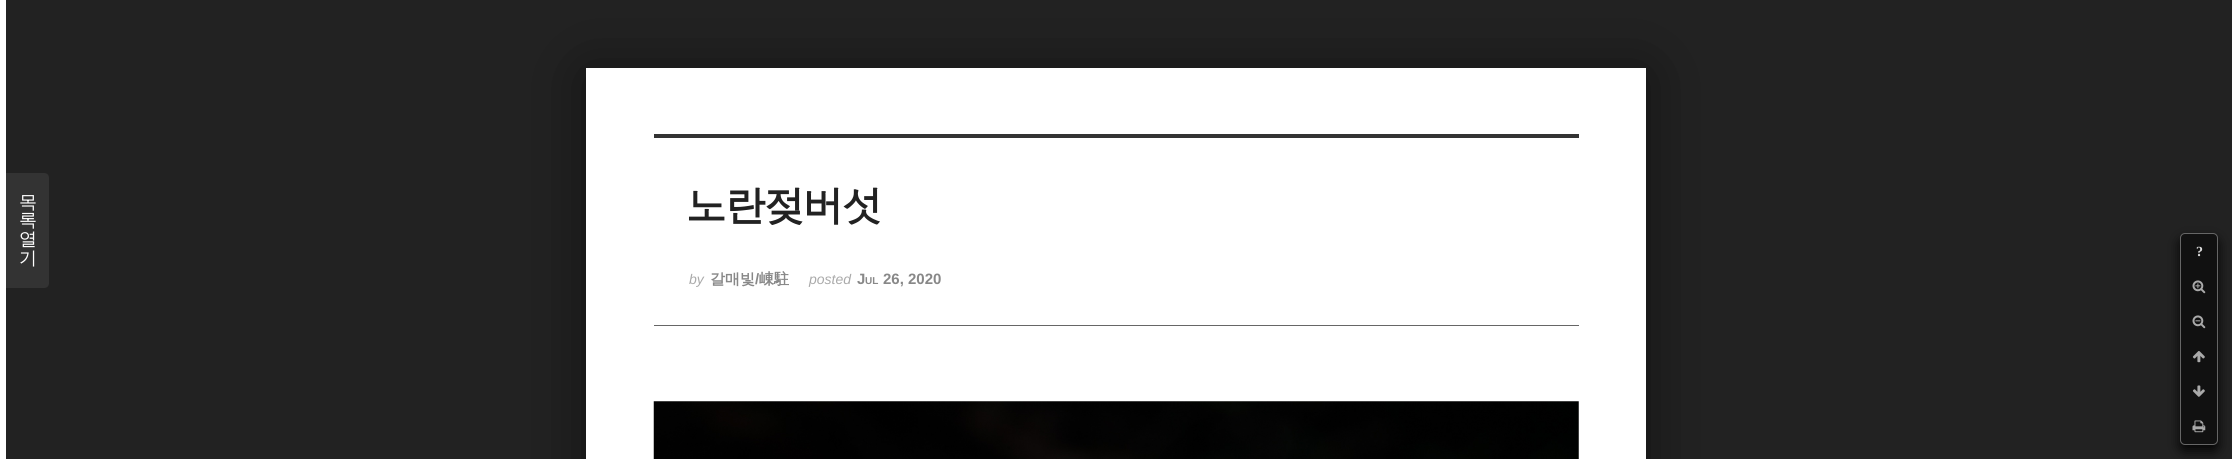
#include <cairo.h>
#include <math.h>
#include <stddef.h>


static void set_color(cairo_t *cr, unsigned color) {
    cairo_set_source_rgb(cr, (color >> 16) / 255.0, (color >> 8 & 255) / 255.0, (color & 255) / 255.0);
}

static void draw_text(cairo_t *cr, double x, double y, const char *s, const char *family, double size, int italic, int bold, unsigned color) {
    cairo_select_font_face(cr, family, italic ? CAIRO_FONT_SLANT_ITALIC : CAIRO_FONT_SLANT_NORMAL,
        bold ? CAIRO_FONT_WEIGHT_BOLD : CAIRO_FONT_WEIGHT_NORMAL);
    cairo_set_font_size(cr, size);
    set_color(cr, color);
    cairo_move_to(cr, x, y);
    cairo_show_text(cr, s);
}

static void draw_spaced(cairo_t *cr, double x, double y, const char *s, double letter, double word) {
    cairo_move_to(cr, x, y);
    while (*s) {
        char ch[5] = {0};
        int n = 0;
        do ch[n++] = *s++; while ((*s & 0xC0) == 0x80);
        cairo_show_text(cr, ch);
        cairo_rel_move_to(cr, letter + word * (*ch == ' '), 0);
    }
}

static void fill_rect(cairo_t *cr, double x, double y, double w, double h, unsigned color) {
    set_color(cr, color);
    cairo_rectangle(cr, x, y, w, h);
    cairo_fill(cr);
}

static void rounded_rect(cairo_t *cr, double x, double y, double w, double h, double r) {
    cairo_new_sub_path(cr);
    cairo_arc(cr, x + w - r, y + h - r, r, 0, M_PI / 2);
    cairo_arc(cr, x + r, y + h - r, r, M_PI / 2, M_PI);
    cairo_arc(cr, x + r, y + r, r, M_PI, 1.5 * M_PI);
    cairo_arc(cr, x + w - r, y + r, r, 1.5 * M_PI, 2 * M_PI);
    cairo_close_path(cr);
}

static void draw_shadow(cairo_t *cr, double x, double y, double w, double h, double r, double blur, double alpha) {
    cairo_push_group_with_content(cr, CAIRO_CONTENT_ALPHA);
    cairo_set_operator(cr, CAIRO_OPERATOR_SOURCE);
    for (int i = 15; i >= -15 && fmin(w, h) + blur * i / 3 > 0; i -= 2) {
        double e = blur * i / 6;
        cairo_set_source_rgba(cr, 0, 0, 0, alpha * erfc((i - 1) / 8.5) / 2);
        rounded_rect(cr, x - e, y - e, w + 2 * e, h + 2 * e, fmax(0, fmin(r + e + blur * .6, fmin(w, h) / 2 + e)));
        cairo_fill(cr);
    }
    cairo_pattern_t *soft = cairo_pop_group(cr);
    cairo_mask(cr, soft);
    cairo_pattern_destroy(soft);
}

static void draw_image(cairo_t *cr, const char *path, double x, double y, double w, double h) {
    cairo_surface_t *image = cairo_image_surface_create_from_png(path);
    cairo_save(cr);
    cairo_set_source_surface(cr, image, x, y);
    cairo_rectangle(cr, x, y, w, h);
    cairo_fill(cr);
    cairo_restore(cr);
    cairo_surface_destroy(image);
}

int main(void) {
    cairo_surface_t *surface = cairo_image_surface_create(CAIRO_FORMAT_RGB24, 2232, 459);
    cairo_t *cr = cairo_create(surface);
    cairo_font_options_t *options = cairo_font_options_create();
    cairo_font_options_set_hint_metrics(options, CAIRO_HINT_METRICS_OFF);
    cairo_font_options_set_hint_style(options, CAIRO_HINT_STYLE_NONE);
    cairo_set_font_options(cr, options);
    cairo_set_miter_limit(cr, 4);
    set_color(cr, 0x222222);
    cairo_paint(cr);
    set_color(cr, 0x000000);
    draw_shadow(cr, 586, 73, 1060, 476, 0, 30, 0.5);
    fill_rect(cr, 586, 68, 1060, 391, 0xFFFFFF);
    fill_rect(cr, 0, 0, 6, 459, 0xFFFFFF);
    set_color(cr, 0x333333);
    cairo_new_path(cr);
    cairo_move_to(cr, 6, 173);
    cairo_line_to(cr, 44, 173);
    cairo_curve_to(cr, 47, 173, 49, 175, 49, 178);
    cairo_line_to(cr, 49, 283);
    cairo_curve_to(cr, 49, 286, 47, 288, 44, 288);
    cairo_line_to(cr, 6, 288);
    cairo_close_path(cr);
    cairo_fill(cr);
    draw_text(cr, 19, 208, "목", "WenQuanYi Zen Hei Medium", 18, 0, 0, 0xFFFFFF);
    draw_text(cr, 19, 226, "록", "WenQuanYi Zen Hei Medium", 18, 0, 0, 0xFFFFFF);
    draw_text(cr, 19, 245, "열", "WenQuanYi Zen Hei Medium", 18, 0, 0, 0xFFFFFF);
    draw_text(cr, 19, 264, "기", "WenQuanYi Zen Hei Medium", 18, 0, 0, 0xFFFFFF);
    fill_rect(cr, 654, 134, 925, 4, 0x333333);
    fill_rect(cr, 654, 325, 925, 1, 0x666666);
    cairo_select_font_face(cr, "WenQuanYi Zen Hei", CAIRO_FONT_SLANT_NORMAL, CAIRO_FONT_WEIGHT_BOLD);
    cairo_set_font_size(cr, 40.25);
    set_color(cr, 0x222222);
    draw_spaced(cr, 686, 219, "노란젖버섯", -1.25, 0);
    draw_text(cr, 689, 284, "by", "Liberation Sans", 14, 1, 0, 0xAAAAAA);
    draw_text(cr, 710, 284, "갈매빛", "WenQuanYi Zen Hei", 15, 0, 1, 0x888888);
    draw_text(cr, 755, 284, "/", "Liberation Sans", 15, 0, 1, 0x888888);
    draw_text(cr, 759, 284, "崠駐", "WenQuanYi Zen Hei", 15, 0, 1, 0x888888);
    draw_text(cr, 809, 284, "posted", "Liberation Sans", 14, 1, 0, 0xAAAAAA);
    draw_text(cr, 857, 284, "J", "Liberation Sans", 15, 0, 1, 0x888888);
    draw_text(cr, 865, 284, "UL", "Liberation Sans", 10, 0, 1, 0x888888);
    draw_text(cr, 883, 284, "26, 2020", "Liberation Sans", 15, 0, 1, 0x888888);
    set_color(cr, 0x000000);
    draw_shadow(cr, 2180, 239, 38, 212, 5, 6, 0.9);
    set_color(cr, 0x111111);
    rounded_rect(cr, 2180.5, 233.5, 37, 211, 4.5);
    cairo_fill_preserve(cr);
    set_color(cr, 0x666666);
    cairo_set_line_width(cr, 1);
    cairo_stroke(cr);
    cairo_select_font_face(cr, "Liberation Serif", CAIRO_FONT_SLANT_NORMAL, CAIRO_FONT_WEIGHT_BOLD);
    cairo_set_font_size(cr, 14);
    set_color(cr, 0xDDDDDD);
    draw_spaced(cr, 2196, 256, "?", -1.25, 0);
    draw_image(cr, "assets/img1.png", 2192, 280, 14, 14);
    draw_image(cr, "assets/img2.png", 2192, 315, 14, 14);
    draw_image(cr, "assets/img3.png", 2192, 351, 13, 12);
    draw_image(cr, "assets/img4.png", 2192, 385, 13, 12);
    draw_image(cr, "assets/img5.png", 2192, 420, 14, 13);
    draw_image(cr, "assets/img6.png", 653, 401, 926, 58);
    cairo_surface_write_to_png(surface, "output.png");
    cairo_font_options_destroy(options);
    cairo_destroy(cr);
    cairo_surface_destroy(surface);
    return 0;
}
